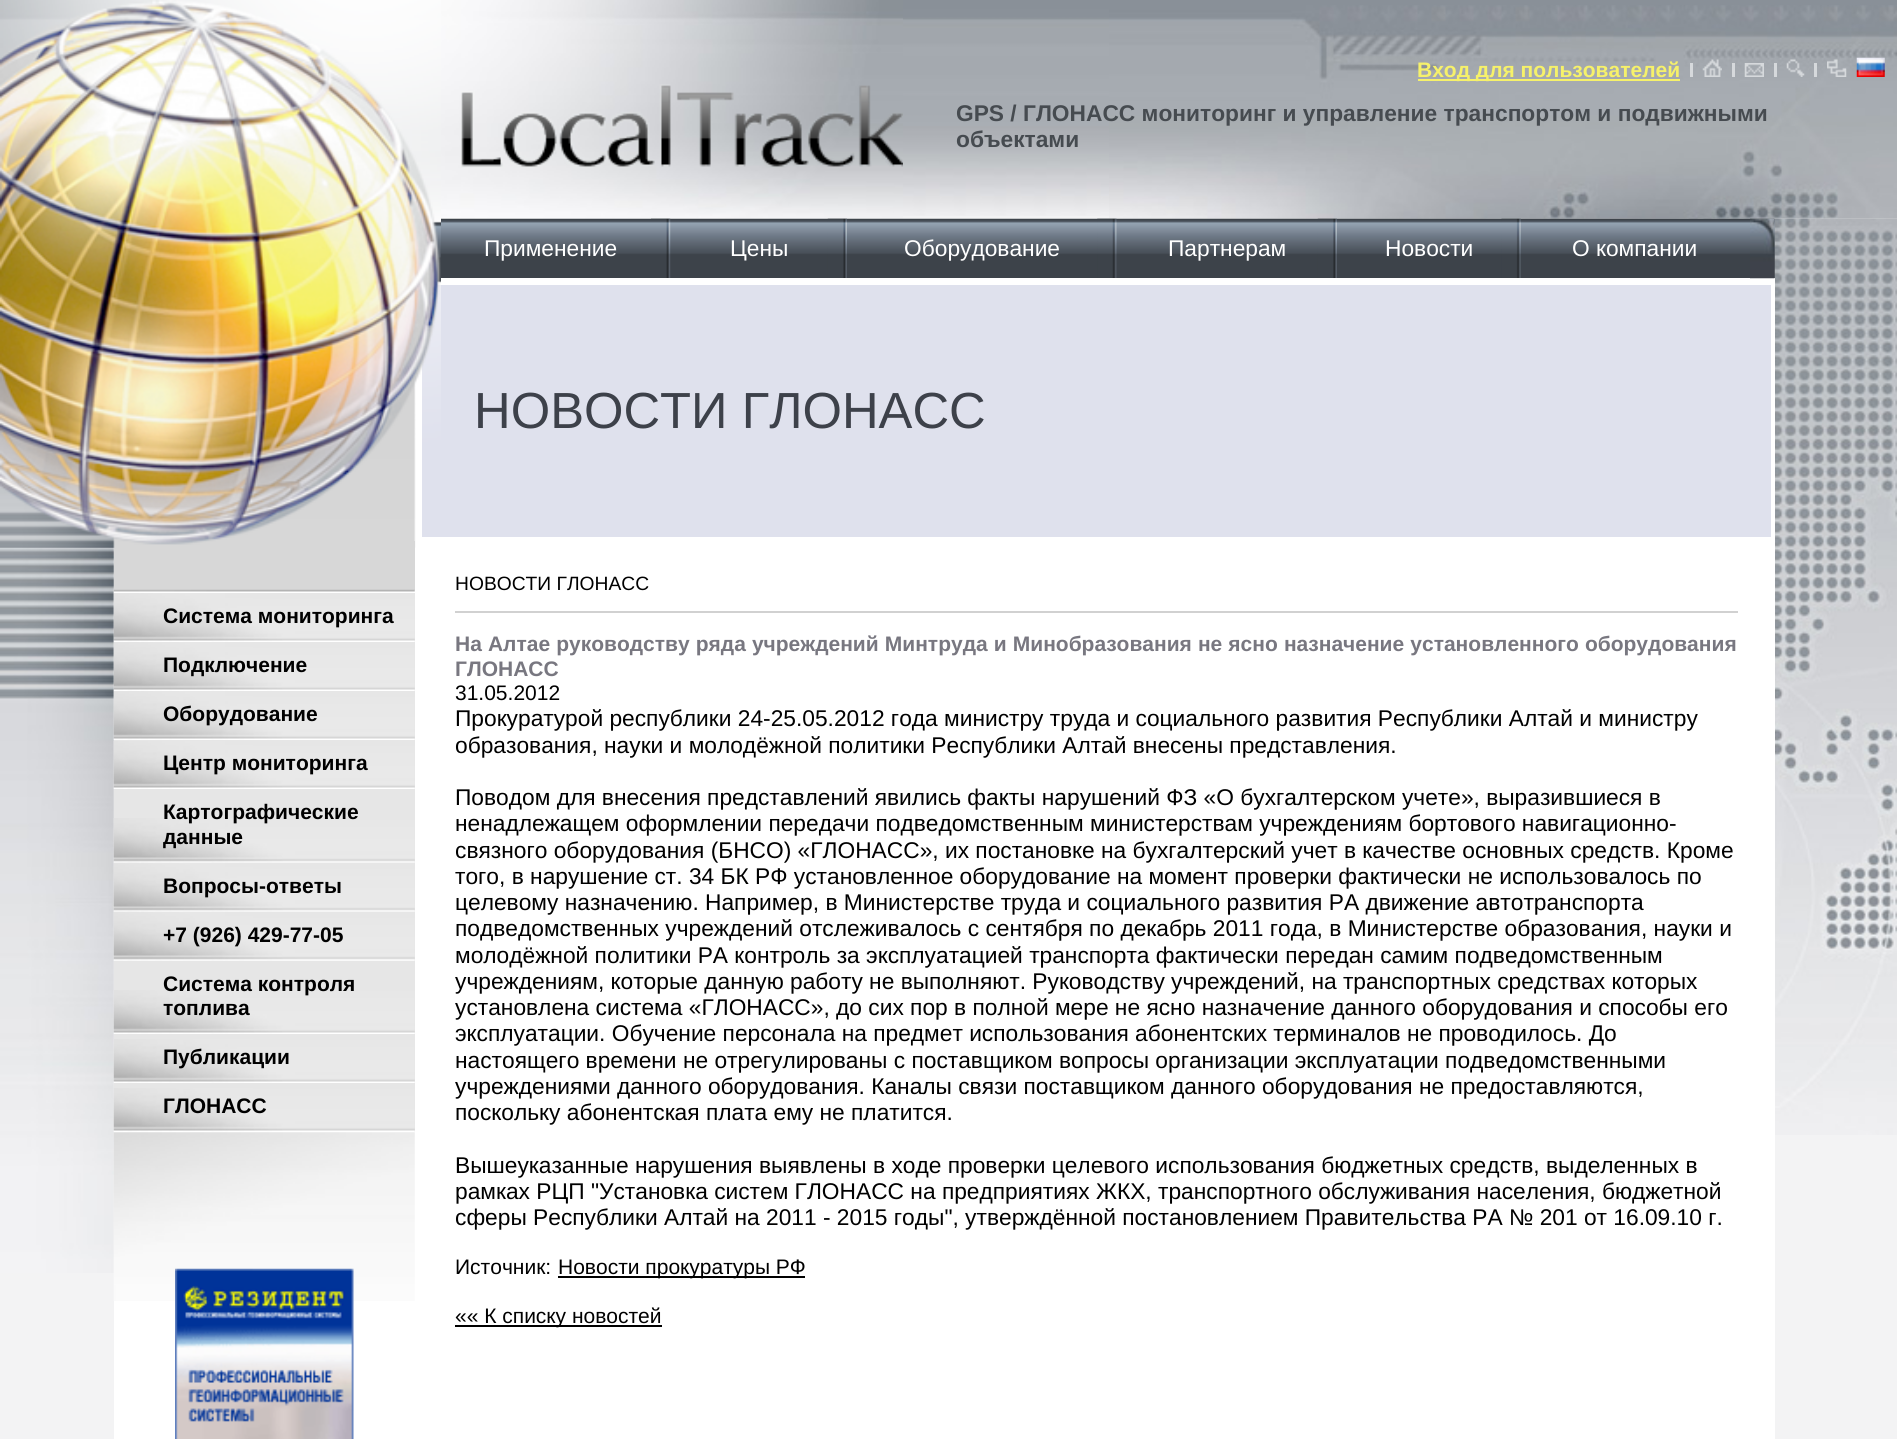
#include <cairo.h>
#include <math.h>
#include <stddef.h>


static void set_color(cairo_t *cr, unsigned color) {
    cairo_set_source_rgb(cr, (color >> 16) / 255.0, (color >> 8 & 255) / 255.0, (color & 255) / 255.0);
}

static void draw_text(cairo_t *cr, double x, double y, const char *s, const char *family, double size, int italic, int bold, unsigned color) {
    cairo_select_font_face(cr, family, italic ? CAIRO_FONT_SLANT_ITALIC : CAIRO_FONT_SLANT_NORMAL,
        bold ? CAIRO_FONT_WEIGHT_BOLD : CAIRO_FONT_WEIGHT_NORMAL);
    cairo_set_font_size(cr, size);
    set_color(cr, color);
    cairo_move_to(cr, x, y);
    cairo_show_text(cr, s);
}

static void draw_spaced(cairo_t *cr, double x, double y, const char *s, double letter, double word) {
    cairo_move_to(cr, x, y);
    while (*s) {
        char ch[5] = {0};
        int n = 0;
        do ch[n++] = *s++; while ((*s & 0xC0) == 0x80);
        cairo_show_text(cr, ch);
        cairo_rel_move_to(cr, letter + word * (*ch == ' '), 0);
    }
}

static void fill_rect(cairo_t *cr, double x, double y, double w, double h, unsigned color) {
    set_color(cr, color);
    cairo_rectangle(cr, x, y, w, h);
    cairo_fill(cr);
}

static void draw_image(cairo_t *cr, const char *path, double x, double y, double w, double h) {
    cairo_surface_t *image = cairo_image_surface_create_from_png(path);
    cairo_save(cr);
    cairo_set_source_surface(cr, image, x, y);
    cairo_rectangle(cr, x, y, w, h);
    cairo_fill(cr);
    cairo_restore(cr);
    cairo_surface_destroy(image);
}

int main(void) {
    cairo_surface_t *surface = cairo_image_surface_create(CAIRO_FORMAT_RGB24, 1897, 1439);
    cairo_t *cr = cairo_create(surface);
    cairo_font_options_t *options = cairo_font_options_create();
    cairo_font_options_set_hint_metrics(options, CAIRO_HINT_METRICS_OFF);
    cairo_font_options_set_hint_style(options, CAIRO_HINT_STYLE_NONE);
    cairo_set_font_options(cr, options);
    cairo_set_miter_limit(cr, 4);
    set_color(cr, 0xF3F3F4);
    cairo_paint(cr);
    draw_image(cr, "assets/img1.png", 903, 0, 994, 216);
    draw_image(cr, "assets/img3.png", 1109, 5, 788, 214);
    draw_image(cr, "assets/img11.png", 1485, 218, 412, 917);
    fill_rect(cr, 114, 278, 1661, 1161, 0xFFFFFF);
    draw_image(cr, "assets/img19.png", 0, 547, 114, 726);
    fill_rect(cr, 114, 541, 301, 49, 0xD7D7D7);
    fill_rect(cr, 422, 285, 1349, 252, 0xDFE1ED);
    draw_image(cr, "assets/img2.png", 0, 0, 441, 548);
    draw_image(cr, "assets/img4.png", 441, 0, 462, 219);
    draw_image(cr, "assets/img5.png", 461, 84, 442, 84);
    fill_rect(cr, 1418, 79, 262, 2, 0xF6F16A);
    draw_text(cr, 1417, 77, "Вход для пользователей", "Liberation Sans", 21, 0, 1, 0xF6F16A);
    fill_rect(cr, 1690, 63, 3, 14, 0xD6D9DC);
    draw_image(cr, "assets/img6.png", 1702, 59, 20, 18);
    fill_rect(cr, 1732, 63, 3, 14, 0xD6D9DC);
    draw_image(cr, "assets/img7.png", 1744, 63, 20, 14);
    fill_rect(cr, 1774, 63, 3, 14, 0xD6D9DC);
    draw_image(cr, "assets/img8.png", 1786, 59, 19, 18);
    fill_rect(cr, 1814, 63, 3, 14, 0xD6D9DC);
    draw_image(cr, "assets/img9.png", 1827, 59, 20, 18);
    draw_image(cr, "assets/img10.png", 1856, 57, 29, 20);
    draw_text(cr, 956, 121, "GPS / ГЛОНАСС мониторинг и управление транспортом и подвижными", "Liberation Sans", 22.75, 0, 1, 0x464B50);
    draw_text(cr, 956, 147, "объектами", "Liberation Sans", 22.75, 0, 1, 0x464B50);
    draw_image(cr, "assets/img12.png", 441, 218, 1334, 60);
    draw_image(cr, "assets/img13.png", 651, 218, 20, 60);
    draw_text(cr, 484, 256, "Применение", "Liberation Sans", 22.75, 0, 0, 0xFFFFFF);
    draw_image(cr, "assets/img14.png", 827, 218, 20, 60);
    draw_text(cr, 730, 256, "Цены", "Liberation Sans", 22.75, 0, 0, 0xFFFFFF);
    draw_image(cr, "assets/img15.png", 1097, 218, 20, 60);
    draw_text(cr, 904, 256, "Оборудование", "Liberation Sans", 22.75, 0, 0, 0xFFFFFF);
    draw_image(cr, "assets/img16.png", 1317, 218, 20, 60);
    draw_text(cr, 1168, 256, "Партнерам", "Liberation Sans", 22.75, 0, 0, 0xFFFFFF);
    draw_image(cr, "assets/img17.png", 1501, 218, 20, 60);
    draw_text(cr, 1385, 256, "Новости", "Liberation Sans", 22.75, 0, 0, 0xFFFFFF);
    draw_text(cr, 1572, 256, "О компании", "Liberation Sans", 22.75, 0, 0, 0xFFFFFF);
    draw_image(cr, "assets/img18.png", 1750, 218, 25, 61);
    draw_image(cr, "assets/img20.png", 113, 589, 302, 5);
    fill_rect(cr, 114, 593, 301, 49, 0xE6E6E6);
    draw_image(cr, "assets/img21.png", 113, 593, 302, 50);
    draw_text(cr, 163, 623, "Система мониторинга", "Liberation Sans", 21, 0, 1, 0x000000);
    fill_rect(cr, 114, 642, 301, 49, 0xE6E6E6);
    draw_image(cr, "assets/img22.png", 113, 642, 302, 50);
    draw_text(cr, 163, 672, "Подключение", "Liberation Sans", 21, 0, 1, 0x000000);
    fill_rect(cr, 114, 691, 301, 441, 0xE6E6E6);
    draw_image(cr, "assets/img23.png", 113, 691, 302, 49);
    draw_text(cr, 163, 721, "Оборудование", "Liberation Sans", 21, 0, 1, 0x000000);
    draw_image(cr, "assets/img24.png", 113, 741, 302, 48);
    draw_text(cr, 163, 770, "Центр мониторинга", "Liberation Sans", 21, 0, 1, 0x000000);
    draw_image(cr, "assets/img25.png", 113, 818, 302, 45);
    draw_text(cr, 163, 819, "Картографические", "Liberation Sans", 21, 0, 1, 0x000000);
    draw_text(cr, 163, 844, "данные", "Liberation Sans", 21, 0, 1, 0x000000);
    draw_image(cr, "assets/img26.png", 113, 862, 302, 50);
    draw_text(cr, 163, 893, "Вопросы-ответы", "Liberation Sans", 21, 0, 1, 0x000000);
    draw_image(cr, "assets/img27.png", 113, 911, 302, 50);
    draw_text(cr, 163, 942, "+7 (926) 429-77-05", "Liberation Sans", 21, 0, 1, 0x000000);
    draw_image(cr, "assets/img28.png", 113, 990, 302, 44);
    draw_text(cr, 163, 991, "Система контроля", "Liberation Sans", 21, 0, 1, 0x000000);
    draw_text(cr, 163, 1015, "топлива", "Liberation Sans", 21, 0, 1, 0x000000);
    draw_image(cr, "assets/img29.png", 113, 1039, 302, 44);
    draw_text(cr, 163, 1064, "Публикации", "Liberation Sans", 21, 0, 1, 0x000000);
    draw_image(cr, "assets/img30.png", 113, 1088, 302, 44);
    draw_text(cr, 163, 1113, "ГЛОНАСС", "Liberation Sans", 21, 0, 1, 0x000000);
    draw_image(cr, "assets/img31.png", 113, 1132, 302, 169);
    draw_image(cr, "assets/img32.png", 175, 1268, 179, 171);
    draw_text(cr, 474, 428, "НОВОСТИ ГЛОНАСС", "Liberation Sans", 50.75, 0, 0, 0x3D414A);
    draw_text(cr, 455, 590, "НОВОСТИ ГЛОНАСС", "Liberation Sans", 19.25, 0, 0, 0x000000);
    fill_rect(cr, 455, 611, 1283, 2, 0xD1D1D1);
    cairo_select_font_face(cr, "Liberation Sans", CAIRO_FONT_SLANT_NORMAL, CAIRO_FONT_WEIGHT_BOLD);
    cairo_set_font_size(cr, 21);
    set_color(cr, 0x787780);
    draw_spaced(cr, 455, 651, "На Алтае руководству ряда учреждений Минтруда и Минобразования не ясно назначение установленного оборудования", 0, 0.25);
    draw_text(cr, 455, 676, "ГЛОНАСС", "Liberation Sans", 21, 0, 1, 0x787780);
    draw_text(cr, 455, 700, "31.05.2012", "Liberation Sans", 21, 0, 0, 0x000000);
    draw_text(cr, 455, 726, "Прокуратурой республики 24-25.05.2012 года министру труда и социального развития Республики Алтай и министру", "Liberation Sans", 22.75, 0, 0, 0x000000);
    draw_text(cr, 455, 753, "образования, науки и молодёжной политики Республики Алтай внесены представления.", "Liberation Sans", 22.75, 0, 0, 0x000000);
    draw_text(cr, 455, 805, "Поводом для внесения представлений явились факты нарушений ФЗ «О бухгалтерском учете», выразившиеся в", "Liberation Sans", 22.75, 0, 0, 0x000000);
    draw_text(cr, 455, 831, "ненадлежащем оформлении передачи подведомственным министерствам учреждениям бортового навигационно-", "Liberation Sans", 22.75, 0, 0, 0x000000);
    draw_text(cr, 455, 858, "связного оборудования (БНСО) «ГЛОНАСС», их постановке на бухгалтерский учет в качестве основных средств. Кроме", "Liberation Sans", 22.75, 0, 0, 0x000000);
    draw_text(cr, 455, 884, "того, в нарушение ст. 34 БК РФ установленное оборудование на момент проверки фактически не использовалось по", "Liberation Sans", 22.75, 0, 0, 0x000000);
    draw_text(cr, 455, 910, "целевому назначению. Например, в Министерстве труда и социального развития РА движение автотранспорта", "Liberation Sans", 22.75, 0, 0, 0x000000);
    draw_text(cr, 455, 936, "подведомственных учреждений отслеживалось с сентября по декабрь 2011 года, в Министерстве образования, науки и", "Liberation Sans", 22.75, 0, 0, 0x000000);
    draw_text(cr, 455, 963, "молодёжной политики РА контроль за эксплуатацией транспорта фактически передан самим подведомственным", "Liberation Sans", 22.75, 0, 0, 0x000000);
    draw_text(cr, 455, 989, "учреждениям, которые данную работу не выполняют. Руководству учреждений, на транспортных средствах которых", "Liberation Sans", 22.75, 0, 0, 0x000000);
    draw_text(cr, 455, 1015, "установлена система «ГЛОНАСС», до сих пор в полной мере не ясно назначение данного оборудования и способы его", "Liberation Sans", 22.75, 0, 0, 0x000000);
    draw_text(cr, 455, 1041, "эксплуатации. Обучение персонала на предмет использования абонентских терминалов не проводилось. До", "Liberation Sans", 22.75, 0, 0, 0x000000);
    draw_text(cr, 455, 1068, "настоящего времени не отрегулированы с поставщиком вопросы организации эксплуатации подведомственными", "Liberation Sans", 22.75, 0, 0, 0x000000);
    draw_text(cr, 455, 1094, "учреждениями данного оборудования. Каналы связи поставщиком данного оборудования не предоставляются,", "Liberation Sans", 22.75, 0, 0, 0x000000);
    draw_text(cr, 455, 1120, "поскольку абонентская плата ему не платится.", "Liberation Sans", 22.75, 0, 0, 0x000000);
    draw_text(cr, 455, 1173, "Вышеуказанные нарушения выявлены в ходе проверки целевого использования бюджетных средств, выделенных в", "Liberation Sans", 22.75, 0, 0, 0x000000);
    draw_text(cr, 455, 1199, "рамках РЦП \"Установка систем ГЛОНАСС на предприятиях ЖКХ, транспортного обслуживания населения, бюджетной", "Liberation Sans", 22.75, 0, 0, 0x000000);
    draw_text(cr, 455, 1225, "сферы Республики Алтай на 2011 - 2015 годы\", утверждённой постановлением Правительства РА № 201 от 16.09.10 г.", "Liberation Sans", 22.75, 0, 0, 0x000000);
    draw_text(cr, 455, 1274, "Источник:", "Liberation Sans", 21, 0, 0, 0x000000);
    fill_rect(cr, 558, 1276, 247, 2, 0x000000);
    draw_text(cr, 558, 1274, "Новости прокуратуры РФ", "Liberation Sans", 21, 0, 0, 0x000000);
    fill_rect(cr, 455, 1325, 207, 2, 0x000000);
    draw_text(cr, 455, 1323, "«« К списку новостей", "Liberation Sans", 21, 0, 0, 0x000000);
    cairo_surface_write_to_png(surface, "output.png");
    cairo_font_options_destroy(options);
    cairo_destroy(cr);
    cairo_surface_destroy(surface);
    return 0;
}
